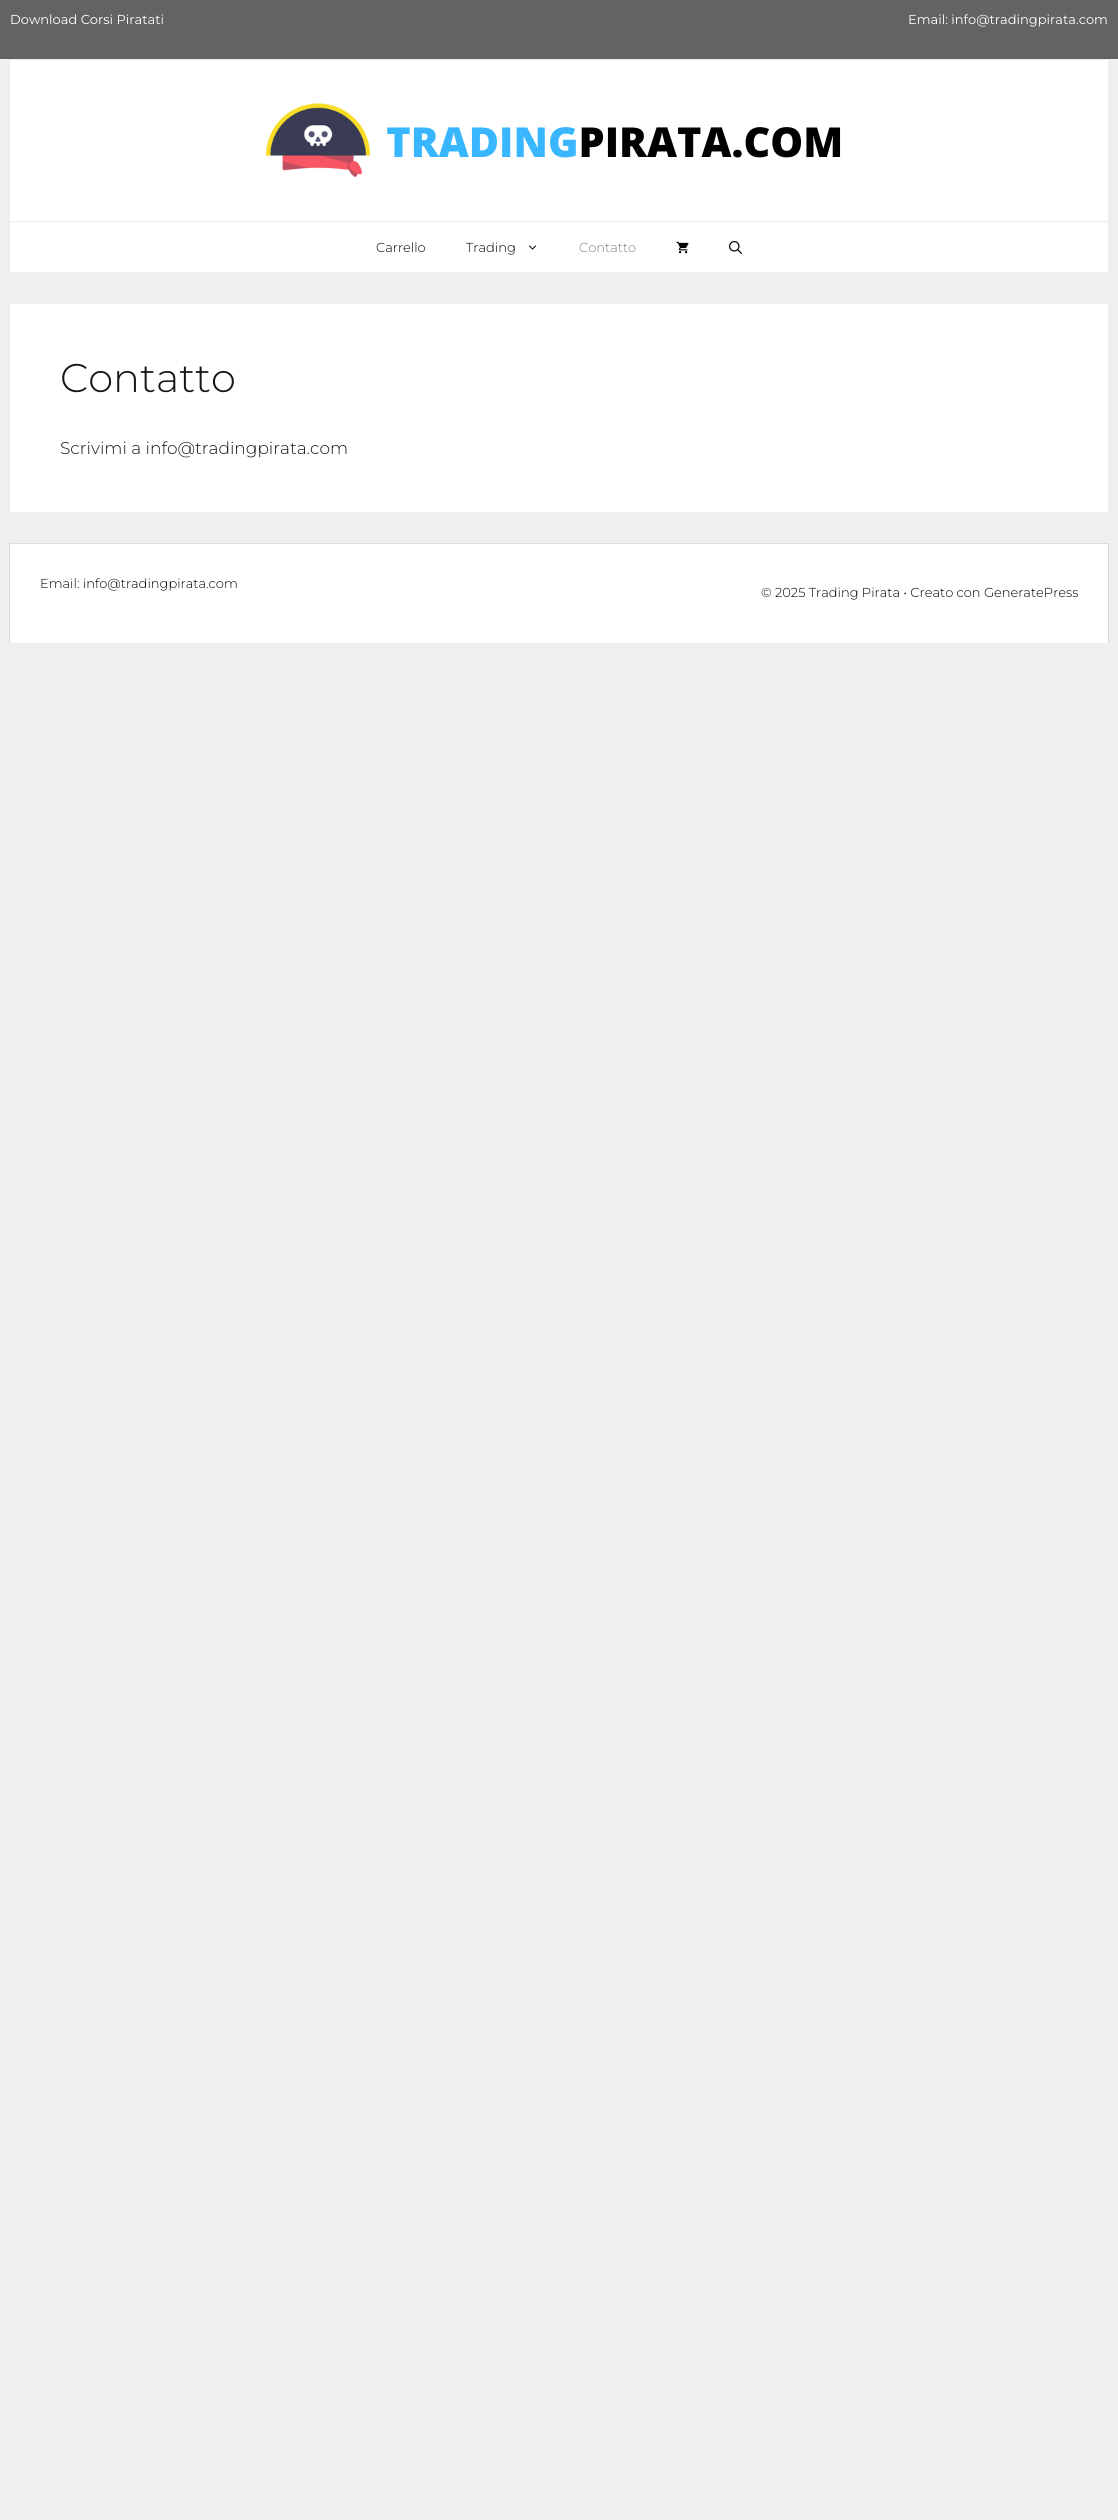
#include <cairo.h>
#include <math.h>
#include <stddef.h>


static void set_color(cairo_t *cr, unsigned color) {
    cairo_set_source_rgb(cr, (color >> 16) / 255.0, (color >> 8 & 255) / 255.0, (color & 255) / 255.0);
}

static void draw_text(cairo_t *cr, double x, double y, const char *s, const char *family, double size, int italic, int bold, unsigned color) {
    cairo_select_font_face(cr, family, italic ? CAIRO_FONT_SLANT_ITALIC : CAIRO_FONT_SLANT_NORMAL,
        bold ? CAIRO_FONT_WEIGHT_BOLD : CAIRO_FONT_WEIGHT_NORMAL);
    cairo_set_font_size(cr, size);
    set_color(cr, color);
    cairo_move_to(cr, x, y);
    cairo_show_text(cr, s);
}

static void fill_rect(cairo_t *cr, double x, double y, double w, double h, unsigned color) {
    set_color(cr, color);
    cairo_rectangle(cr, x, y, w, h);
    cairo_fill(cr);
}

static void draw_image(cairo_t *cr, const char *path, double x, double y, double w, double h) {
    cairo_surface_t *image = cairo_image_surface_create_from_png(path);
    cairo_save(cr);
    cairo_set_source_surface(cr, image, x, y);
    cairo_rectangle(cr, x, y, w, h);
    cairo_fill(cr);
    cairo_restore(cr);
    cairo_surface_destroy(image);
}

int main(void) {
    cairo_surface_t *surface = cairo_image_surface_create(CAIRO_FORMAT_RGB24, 1118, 2520);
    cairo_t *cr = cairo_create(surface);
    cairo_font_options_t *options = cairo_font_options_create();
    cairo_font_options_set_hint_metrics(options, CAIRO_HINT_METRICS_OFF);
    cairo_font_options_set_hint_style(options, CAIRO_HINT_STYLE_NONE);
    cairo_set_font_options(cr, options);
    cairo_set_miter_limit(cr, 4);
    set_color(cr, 0xEFEFEF);
    cairo_paint(cr);
    fill_rect(cr, 0, 0, 1118, 59, 0x636363);
    draw_text(cr, 10, 24, "Download Corsi Piratati", "Montserrat Thin", 13, 0, 0, 0xFFFFFF);
    draw_text(cr, 908, 24, "Email: info@tradingpirata.com", "Montserrat Thin", 13, 0, 0, 0xFFFFFF);
    fill_rect(cr, 9, 59, 1100, 162, 0xFFFFFF);
    set_color(cr, 0xEBEBEB);
    cairo_new_path(cr);
    cairo_move_to(cr, 9, 59);
    cairo_line_to(cr, 1109, 59);
    cairo_line_to(cr, 1108, 60);
    cairo_line_to(cr, 10, 60);
    cairo_close_path(cr);
    cairo_fill(cr);
    cairo_set_source_rgba(cr, 0, 0, 0, 0.08);
    cairo_new_path(cr);
    cairo_move_to(cr, 1109, 59);
    cairo_line_to(cr, 1109, 221);
    cairo_line_to(cr, 1108, 221);
    cairo_line_to(cr, 1108, 60);
    cairo_close_path(cr);
    cairo_fill(cr);
    cairo_new_path(cr);
    cairo_move_to(cr, 9, 221);
    cairo_line_to(cr, 9, 59);
    cairo_line_to(cr, 10, 60);
    cairo_line_to(cr, 10, 221);
    cairo_close_path(cr);
    cairo_fill(cr);
    draw_image(cr, "assets/img1.png", 265, 103, 576, 74);
    set_color(cr, 0xFFFFFF);
    cairo_rectangle(cr, 9.5, 221.5, 1099, 51);
    cairo_fill_preserve(cr);
    set_color(cr, 0xEBEBEB);
    cairo_set_line_width(cr, 1);
    cairo_stroke(cr);
    draw_text(cr, 376, 252, "Carrello", "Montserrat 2 Thin", 13, 0, 0, 0x000000);
    draw_text(cr, 466, 252, "Trading", "Montserrat 2 Thin", 13, 0, 0, 0x000000);
    draw_image(cr, "assets/img2.png", 529, 245, 7, 5);
    draw_text(cr, 579, 252, "Contatto", "Montserrat 2 Thin", 13, 0, 0, 0x7F7F7F);
    draw_image(cr, "assets/img3.png", 676, 241, 13, 13);
    draw_image(cr, "assets/img4.png", 729, 241, 13, 13);
    set_color(cr, 0xFFFFFF);
    cairo_rectangle(cr, 9.5, 303.5, 1099, 209);
    cairo_fill_preserve(cr);
    set_color(cr, 0xEBEBEB);
    cairo_stroke(cr);
    draw_text(cr, 60, 392, "Contatto", "Montserrat 2 Thin", 40, 0, 0, 0x161616);
    draw_text(cr, 60, 454, "Scrivimi a info@tradingpirata.com", "Montserrat 2 Thin", 17, 0, 0, 0x161616);
    set_color(cr, 0xDCDCDC);
    cairo_new_path(cr);
    cairo_move_to(cr, 9, 543);
    cairo_line_to(cr, 1109, 543);
    cairo_line_to(cr, 1108, 544);
    cairo_line_to(cr, 10, 544);
    cairo_close_path(cr);
    cairo_fill(cr);
    cairo_set_source_rgba(cr, 0, 0, 0, 0.08);
    cairo_new_path(cr);
    cairo_move_to(cr, 1109, 543);
    cairo_line_to(cr, 1109, 643);
    cairo_line_to(cr, 1108, 643);
    cairo_line_to(cr, 1108, 544);
    cairo_close_path(cr);
    cairo_fill(cr);
    cairo_new_path(cr);
    cairo_move_to(cr, 9, 643);
    cairo_line_to(cr, 9, 543);
    cairo_line_to(cr, 10, 544);
    cairo_line_to(cr, 10, 643);
    cairo_close_path(cr);
    cairo_fill(cr);
    fill_rect(cr, 10, 544, 1098, 99, 0xFFFFFF);
    draw_text(cr, 40, 588, "Email: info@tradingpirata.com", "Montserrat 2 Thin", 13, 0, 0, 0x000000);
    draw_text(cr, 761, 597, "© 2025 Trading Pirata • Creato con GeneratePress", "Montserrat 2 Thin", 13, 0, 0, 0x000000);
    cairo_surface_write_to_png(surface, "output.png");
    cairo_font_options_destroy(options);
    cairo_destroy(cr);
    cairo_surface_destroy(surface);
    return 0;
}
